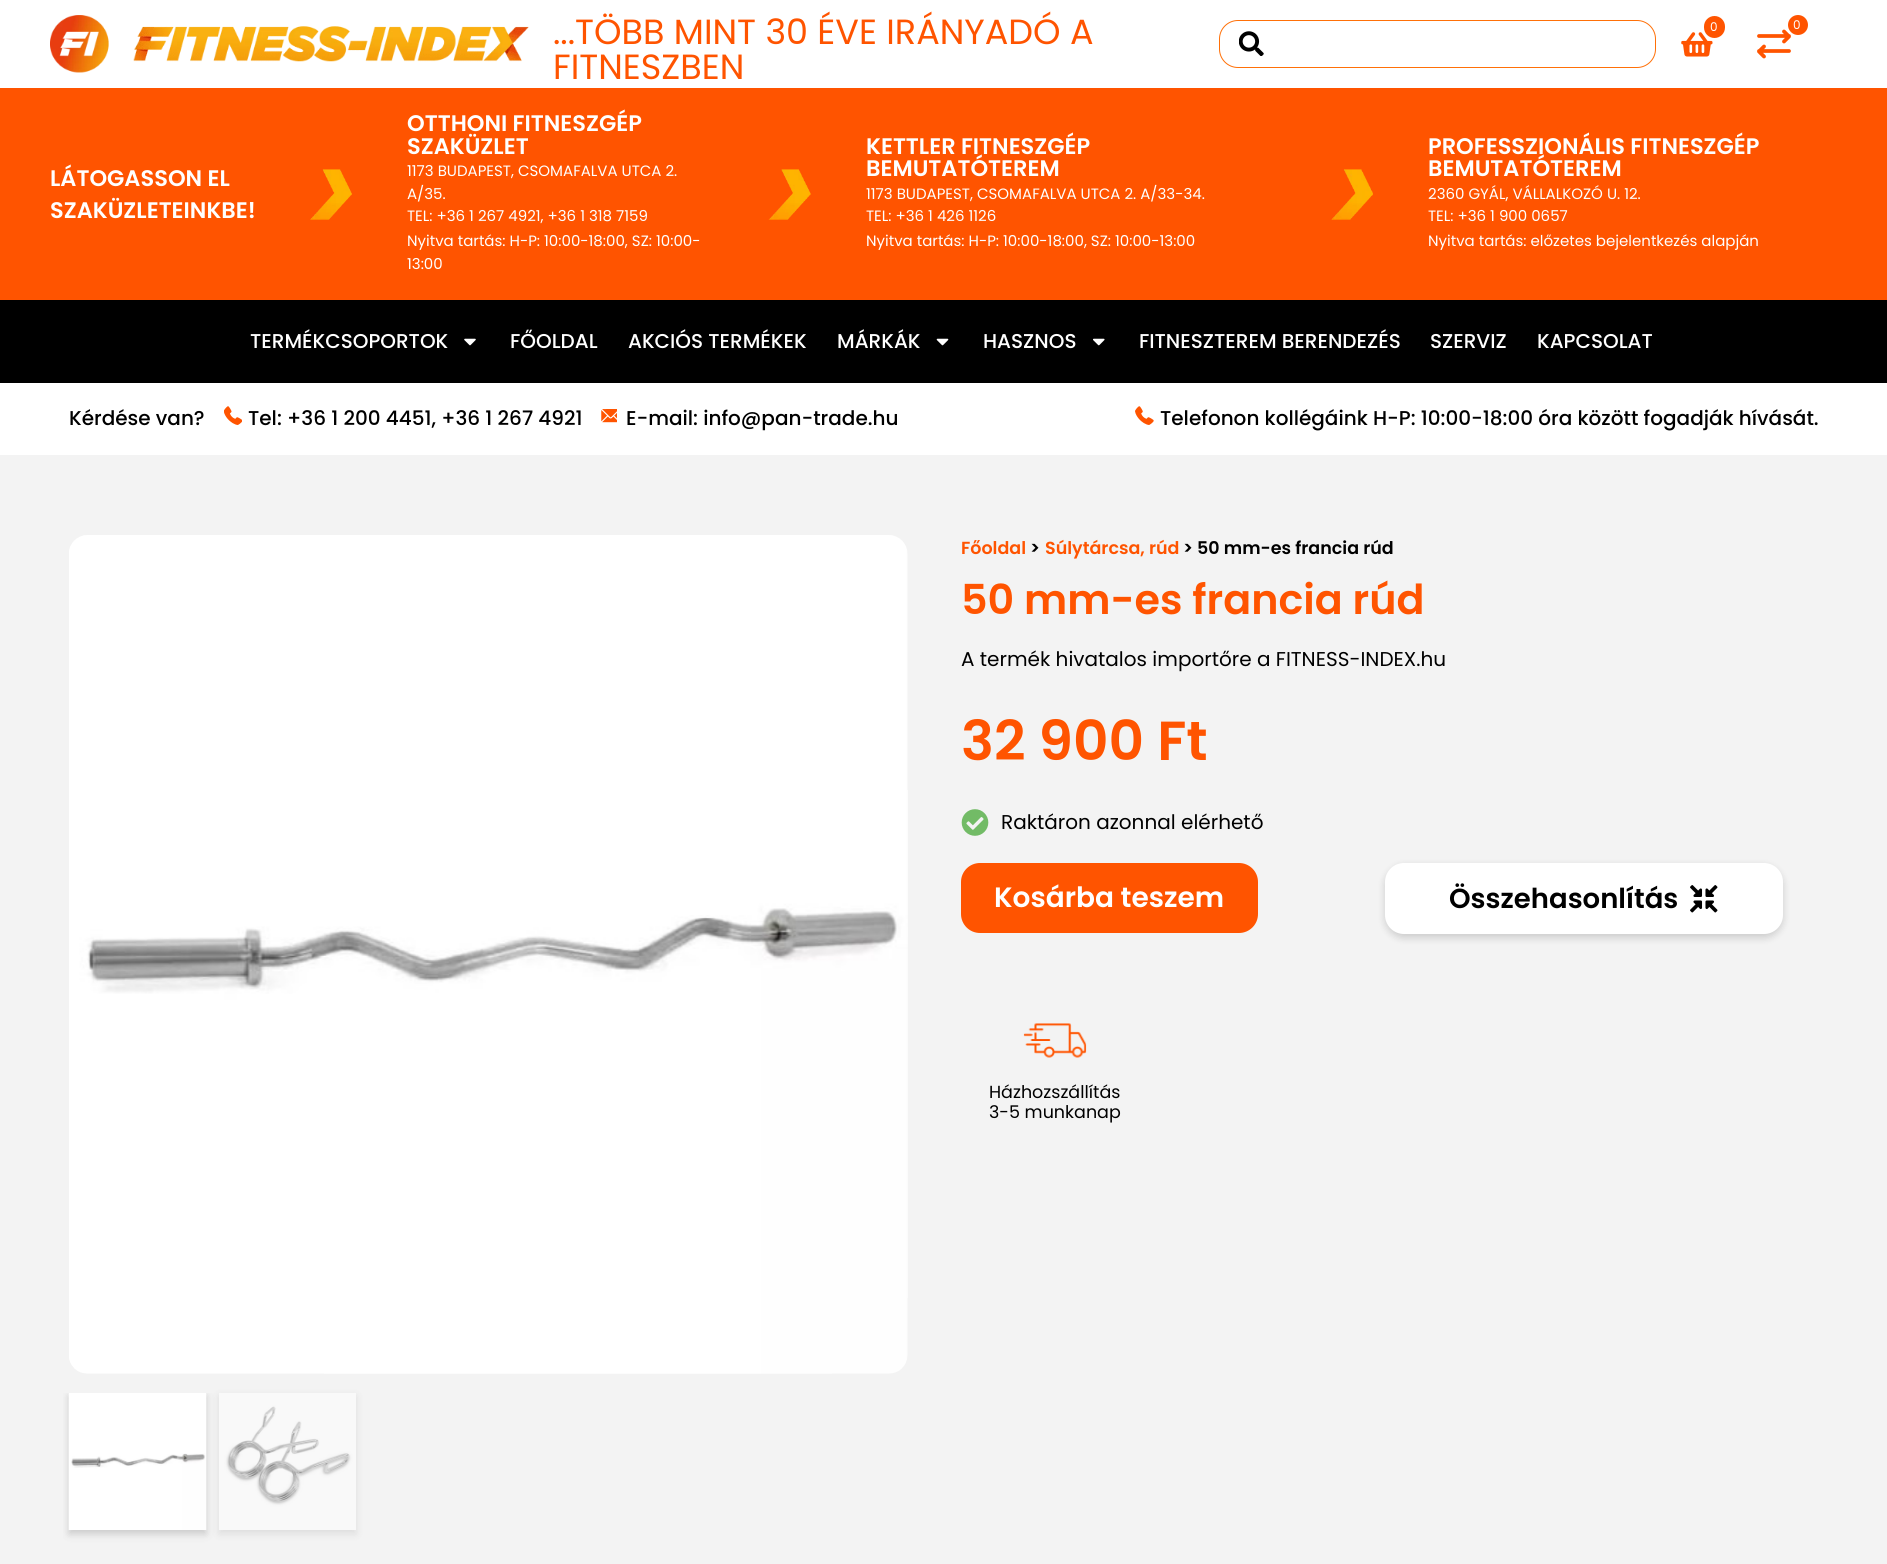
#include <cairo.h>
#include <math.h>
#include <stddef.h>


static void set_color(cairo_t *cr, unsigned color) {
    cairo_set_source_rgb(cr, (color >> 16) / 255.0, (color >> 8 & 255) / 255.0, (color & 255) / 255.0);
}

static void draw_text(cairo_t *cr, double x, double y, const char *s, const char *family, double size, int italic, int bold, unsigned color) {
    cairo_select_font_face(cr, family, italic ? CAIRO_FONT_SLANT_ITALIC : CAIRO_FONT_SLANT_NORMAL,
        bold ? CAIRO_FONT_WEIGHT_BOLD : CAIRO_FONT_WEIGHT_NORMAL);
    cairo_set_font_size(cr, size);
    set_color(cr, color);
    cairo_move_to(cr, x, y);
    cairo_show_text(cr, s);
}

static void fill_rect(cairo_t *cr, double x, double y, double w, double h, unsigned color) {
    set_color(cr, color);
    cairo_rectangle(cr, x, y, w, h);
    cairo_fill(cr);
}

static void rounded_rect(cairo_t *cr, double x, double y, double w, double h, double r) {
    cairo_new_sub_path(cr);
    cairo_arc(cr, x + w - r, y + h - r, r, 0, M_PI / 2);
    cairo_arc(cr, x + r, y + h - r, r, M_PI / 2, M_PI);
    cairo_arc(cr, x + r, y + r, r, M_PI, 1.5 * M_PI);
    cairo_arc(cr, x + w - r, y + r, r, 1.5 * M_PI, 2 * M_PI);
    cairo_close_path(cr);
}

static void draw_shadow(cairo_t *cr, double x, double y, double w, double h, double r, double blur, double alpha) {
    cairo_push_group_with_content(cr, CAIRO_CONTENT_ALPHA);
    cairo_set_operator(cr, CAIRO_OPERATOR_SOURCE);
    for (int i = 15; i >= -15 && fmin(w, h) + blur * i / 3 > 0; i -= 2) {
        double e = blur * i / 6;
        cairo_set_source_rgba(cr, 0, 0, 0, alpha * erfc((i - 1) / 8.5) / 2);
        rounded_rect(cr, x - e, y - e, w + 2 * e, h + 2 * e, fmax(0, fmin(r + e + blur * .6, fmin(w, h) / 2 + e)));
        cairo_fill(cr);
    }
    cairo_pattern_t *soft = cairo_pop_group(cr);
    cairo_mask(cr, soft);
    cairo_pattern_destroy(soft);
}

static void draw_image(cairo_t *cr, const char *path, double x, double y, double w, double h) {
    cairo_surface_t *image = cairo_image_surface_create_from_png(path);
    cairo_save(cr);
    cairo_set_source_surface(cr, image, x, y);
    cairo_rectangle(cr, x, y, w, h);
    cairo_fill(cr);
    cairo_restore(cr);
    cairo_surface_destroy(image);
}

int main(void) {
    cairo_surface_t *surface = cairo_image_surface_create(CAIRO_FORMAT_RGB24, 1887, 1564);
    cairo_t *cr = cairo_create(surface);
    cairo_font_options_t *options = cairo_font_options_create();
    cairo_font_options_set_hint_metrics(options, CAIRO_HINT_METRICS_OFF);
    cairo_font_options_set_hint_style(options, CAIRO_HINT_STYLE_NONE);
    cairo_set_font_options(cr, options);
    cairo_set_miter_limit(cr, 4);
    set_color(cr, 0xFFFFFF);
    cairo_paint(cr);
    draw_image(cr, "assets/img1.png", 50, 15, 59, 58);
    draw_image(cr, "assets/img2.png", 133, 26, 396, 36);
    draw_text(cr, 553, 44, "...TÖBB MINT 30 ÉVE IRÁNYADÓ A", "Poppins", 35, 0, 0, 0xFF5400);
    draw_text(cr, 553, 79, "FITNESZBEN", "Poppins", 35, 0, 0, 0xFF5400);
    rounded_rect(cr, 1219.5, 20.5, 436, 47, 18.5);
    set_color(cr, 0xFF7008);
    cairo_set_line_width(cr, 1);
    cairo_stroke(cr);
    draw_image(cr, "assets/img3.png", 1239, 31, 25, 25);
    draw_image(cr, "assets/img4.png", 1681, 32, 32, 25);
    set_color(cr, 0xFF5400);
    rounded_rect(cr, 1704, 16, 21, 22, 10.5);
    cairo_fill(cr);
    draw_text(cr, 1710, 31, "0", "Poppins", 12, 0, 0, 0xFFFFFF);
    cairo_new_path(cr);
    cairo_move_to(cr, 1764, 46.5);
    cairo_line_to(cr, 1759, 51.5);
    cairo_line_to(cr, 1764, 56.5);
    cairo_move_to(cr, 1789, 51);
    cairo_line_to(cr, 1759, 51);
    cairo_move_to(cr, 1784, 41.5);
    cairo_line_to(cr, 1789, 36.5);
    cairo_line_to(cr, 1784, 31.5);
    cairo_move_to(cr, 1759, 36);
    cairo_line_to(cr, 1789, 36);
    set_color(cr, 0xFF5400);
    cairo_set_line_width(cr, 3.8);
    cairo_set_line_cap(cr, CAIRO_LINE_CAP_ROUND);
    cairo_set_line_join(cr, CAIRO_LINE_JOIN_ROUND);
    cairo_stroke(cr);
    cairo_arc(cr, 1798, 25, 10, 0, 2 * M_PI);
    cairo_fill(cr);
    draw_text(cr, 1793, 29, "0", "Poppins", 12, 0, 0, 0xFFFFFF);
    fill_rect(cr, 0, 88, 1887, 212, 0xFF5400);
    draw_text(cr, 50, 186, "LÁTOGASSON EL", "Poppins SemiBold", 22.5, 0, 0, 0xFFFFFF);
    draw_text(cr, 50, 218, "SZAKÜZLETEINKBE!", "Poppins SemiBold", 22.5, 0, 0, 0xFFFFFF);
    draw_image(cr, "assets/img5.png", 310, 169, 42, 51);
    draw_text(cr, 407, 131, "OTTHONI FITNESZGÉP", "Poppins SemiBold", 22.5, 0, 0, 0xFFFFFF);
    draw_text(cr, 407, 154, "SZAKÜZLET", "Poppins SemiBold", 22.5, 0, 0, 0xFFFFFF);
    draw_text(cr, 407, 176, "1173 BUDAPEST, CSOMAFALVA UTCA 2.", "Poppins", 15, 0, 0, 0xFFFFFF);
    draw_text(cr, 407, 199, "A/35.", "Poppins", 15, 0, 0, 0xFFFFFF);
    draw_text(cr, 407, 221, "TEL: +36 1 267 4921, +36 1 318 7159", "Poppins", 15, 0, 0, 0xFFFFFF);
    draw_text(cr, 407, 246, "Nyitva tartás: H-P: 10:00-18:00, SZ: 10:00-", "Poppins", 15, 0, 0, 0xFFFFFF);
    draw_text(cr, 407, 269, "13:00", "Poppins", 15, 0, 0, 0xFFFFFF);
    draw_image(cr, "assets/img6.png", 768, 169, 43, 51);
    draw_text(cr, 866, 154, "KETTLER FITNESZGÉP", "Poppins SemiBold", 22.5, 0, 0, 0xFFFFFF);
    draw_text(cr, 866, 176, "BEMUTATÓTEREM", "Poppins SemiBold", 22.5, 0, 0, 0xFFFFFF);
    draw_text(cr, 866, 199, "1173 BUDAPEST, CSOMAFALVA UTCA 2. A/33-34.", "Poppins", 15, 0, 0, 0xFFFFFF);
    draw_text(cr, 866, 221, "TEL: +36 1 426 1126", "Poppins", 15, 0, 0, 0xFFFFFF);
    draw_text(cr, 866, 246, "Nyitva tartás: H-P: 10:00-18:00, SZ: 10:00-13:00", "Poppins", 15, 0, 0, 0xFFFFFF);
    draw_image(cr, "assets/img7.png", 1331, 169, 42, 51);
    draw_text(cr, 1428, 154, "PROFESSZIONÁLIS FITNESZGÉP", "Poppins SemiBold", 22.5, 0, 0, 0xFFFFFF);
    draw_text(cr, 1428, 176, "BEMUTATÓTEREM", "Poppins SemiBold", 22.5, 0, 0, 0xFFFFFF);
    draw_text(cr, 1428, 199, "2360 GYÁL, VÁLLALKOZÓ U. 12.", "Poppins", 15, 0, 0, 0xFFFFFF);
    draw_text(cr, 1428, 221, "TEL: +36 1 900 0657", "Poppins", 15, 0, 0, 0xFFFFFF);
    draw_text(cr, 1428, 246, "Nyitva tartás: előzetes bejelentkezés alapján", "Poppins", 15, 0, 0, 0xFFFFFF);
    fill_rect(cr, 0, 300, 1887, 83, 0x000000);
    draw_text(cr, 250, 348, "TERMÉKCSOPORTOK", "Poppins Medium", 20, 0, 0, 0xFFFFFF);
    draw_image(cr, "assets/img8.png", 464, 338, 12, 8);
    draw_text(cr, 510, 348, "FŐOLDAL", "Poppins Medium", 20, 0, 0, 0xFFFFFF);
    draw_text(cr, 628, 348, "AKCIÓS TERMÉKEK", "Poppins Medium", 20, 0, 0, 0xFFFFFF);
    draw_text(cr, 837, 348, "MÁRKÁK", "Poppins Medium", 20, 0, 0, 0xFFFFFF);
    draw_image(cr, "assets/img9.png", 936, 338, 13, 8);
    draw_text(cr, 983, 348, "HASZNOS", "Poppins Medium", 20, 0, 0, 0xFFFFFF);
    draw_image(cr, "assets/img10.png", 1093, 338, 12, 8);
    draw_text(cr, 1139, 348, "FITNESZTEREM BERENDEZÉS", "Poppins Medium", 20, 0, 0, 0xFFFFFF);
    draw_text(cr, 1430, 348, "SZERVIZ", "Poppins Medium", 20, 0, 0, 0xFFFFFF);
    draw_text(cr, 1537, 348, "KAPCSOLAT", "Poppins Medium", 20, 0, 0, 0xFFFFFF);
    set_color(cr, 0x000000);
    draw_shadow(cr, 0, 386, 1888, 73, 0, 4, 0.16);
    fill_rect(cr, 0, 383, 1887, 72, 0xFFFFFF);
    draw_text(cr, 69, 425, "Kérdése van?", "Poppins Medium", 20, 0, 0, 0x000000);
    draw_image(cr, "assets/img11.png", 224, 406, 18, 19);
    draw_text(cr, 248, 425, "Tel: +36 1 200 4451, +36 1 267 4921", "Poppins Medium", 20, 0, 0, 0x000000);
    draw_image(cr, "assets/img12.png", 601, 409, 16, 14);
    draw_text(cr, 626, 425, "E-mail: info@pan-trade.hu", "Poppins Medium", 20, 0, 0, 0x000000);
    draw_image(cr, "assets/img13.png", 1135, 406, 19, 19);
    draw_text(cr, 1160, 425, "Telefonon kollégáink H-P: 10:00-18:00 óra között fogadják hívását.", "Poppins Medium", 20, 0, 0, 0x000000);
    fill_rect(cr, 0, 455, 1887, 1109, 0xF3F3F3);
    draw_image(cr, "assets/img14.png", 69, 535, 839, 839);
    cairo_save(cr);
    cairo_rectangle(cr, 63, 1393, 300, 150);
    cairo_clip(cr);
    set_color(cr, 0x000000);
    draw_shadow(cr, 69, 1396, 137, 138, 0, 4, 0.17);
    cairo_restore(cr);
    draw_image(cr, "assets/img15.png", 68, 1393, 139, 137);
    cairo_save(cr);
    cairo_set_fill_rule(cr, CAIRO_FILL_RULE_EVEN_ODD);
    cairo_new_path(cr);
    cairo_move_to(cr, 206, 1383);
    cairo_line_to(cr, 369, 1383);
    cairo_line_to(cr, 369, 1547);
    cairo_line_to(cr, 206, 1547);
    cairo_close_path(cr);
    cairo_move_to(cr, 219, 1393);
    cairo_line_to(cr, 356, 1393);
    cairo_line_to(cr, 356, 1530);
    cairo_line_to(cr, 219, 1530);
    cairo_close_path(cr);
    cairo_clip(cr);
    set_color(cr, 0x000000);
    draw_shadow(cr, 219, 1396, 137, 138, 0, 4, 0.09);
    cairo_restore(cr);
    draw_image(cr, "assets/img16.png", 219, 1393, 137, 137);
    draw_text(cr, 961, 554, "Főoldal", "Poppins SemiBold", 17.5, 0, 0, 0xFF5400);
    draw_text(cr, 1030, 554, ">", "Poppins SemiBold", 17.5, 0, 0, 0x000000);
    draw_text(cr, 1045, 554, "Súlytárcsa, rúd", "Poppins SemiBold", 17.5, 0, 0, 0xFF5400);
    draw_text(cr, 1183, 554, "> 50 mm-es francia rúd", "Poppins SemiBold", 17.5, 0, 0, 0x000000);
    draw_text(cr, 961, 614, "50 mm-es francia rúd", "Poppins SemiBold", 41.25, 0, 0, 0xFF5400);
    draw_text(cr, 961, 666, "A termék hivatalos importőre a FITNESS-INDEX.hu", "Poppins", 20, 0, 0, 0x000000);
    draw_text(cr, 961, 760, "32 900 Ft", "Poppins SemiBold", 55, 0, 0, 0xFF5400);
    draw_image(cr, "assets/img17.png", 961, 809, 28, 27);
    draw_text(cr, 1001, 829, "Raktáron azonnal elérhető", "Poppins", 20, 0, 0, 0x000000);
    set_color(cr, 0xFF5400);
    rounded_rect(cr, 961, 863, 297, 70, 19);
    cairo_fill(cr);
    draw_text(cr, 994, 907, "Kosárba teszem", "Poppins SemiBold", 28, 0, 0, 0xFFFFFF);
    set_color(cr, 0x000000);
    draw_shadow(cr, 1385, 866, 398, 72, 19, 4, 0.16);
    set_color(cr, 0xFFFFFF);
    rounded_rect(cr, 1385, 863, 398, 71, 19);
    cairo_fill(cr);
    draw_text(cr, 1449, 908, "Összehasonlítás", "Poppins SemiBold", 27.5, 0, 0, 0x000000);
    draw_image(cr, "assets/img18.png", 1690, 885, 28, 28);
    draw_image(cr, "assets/img19.png", 1023, 1023, 64, 35);
    draw_text(cr, 989, 1098, "Házhozszállítás", "Poppins", 17.5, 0, 0, 0x000000);
    draw_text(cr, 989, 1118, "3-5 munkanap", "Poppins", 17.5, 0, 0, 0x000000);
    cairo_surface_write_to_png(surface, "output.png");
    cairo_font_options_destroy(options);
    cairo_destroy(cr);
    cairo_surface_destroy(surface);
    return 0;
}
